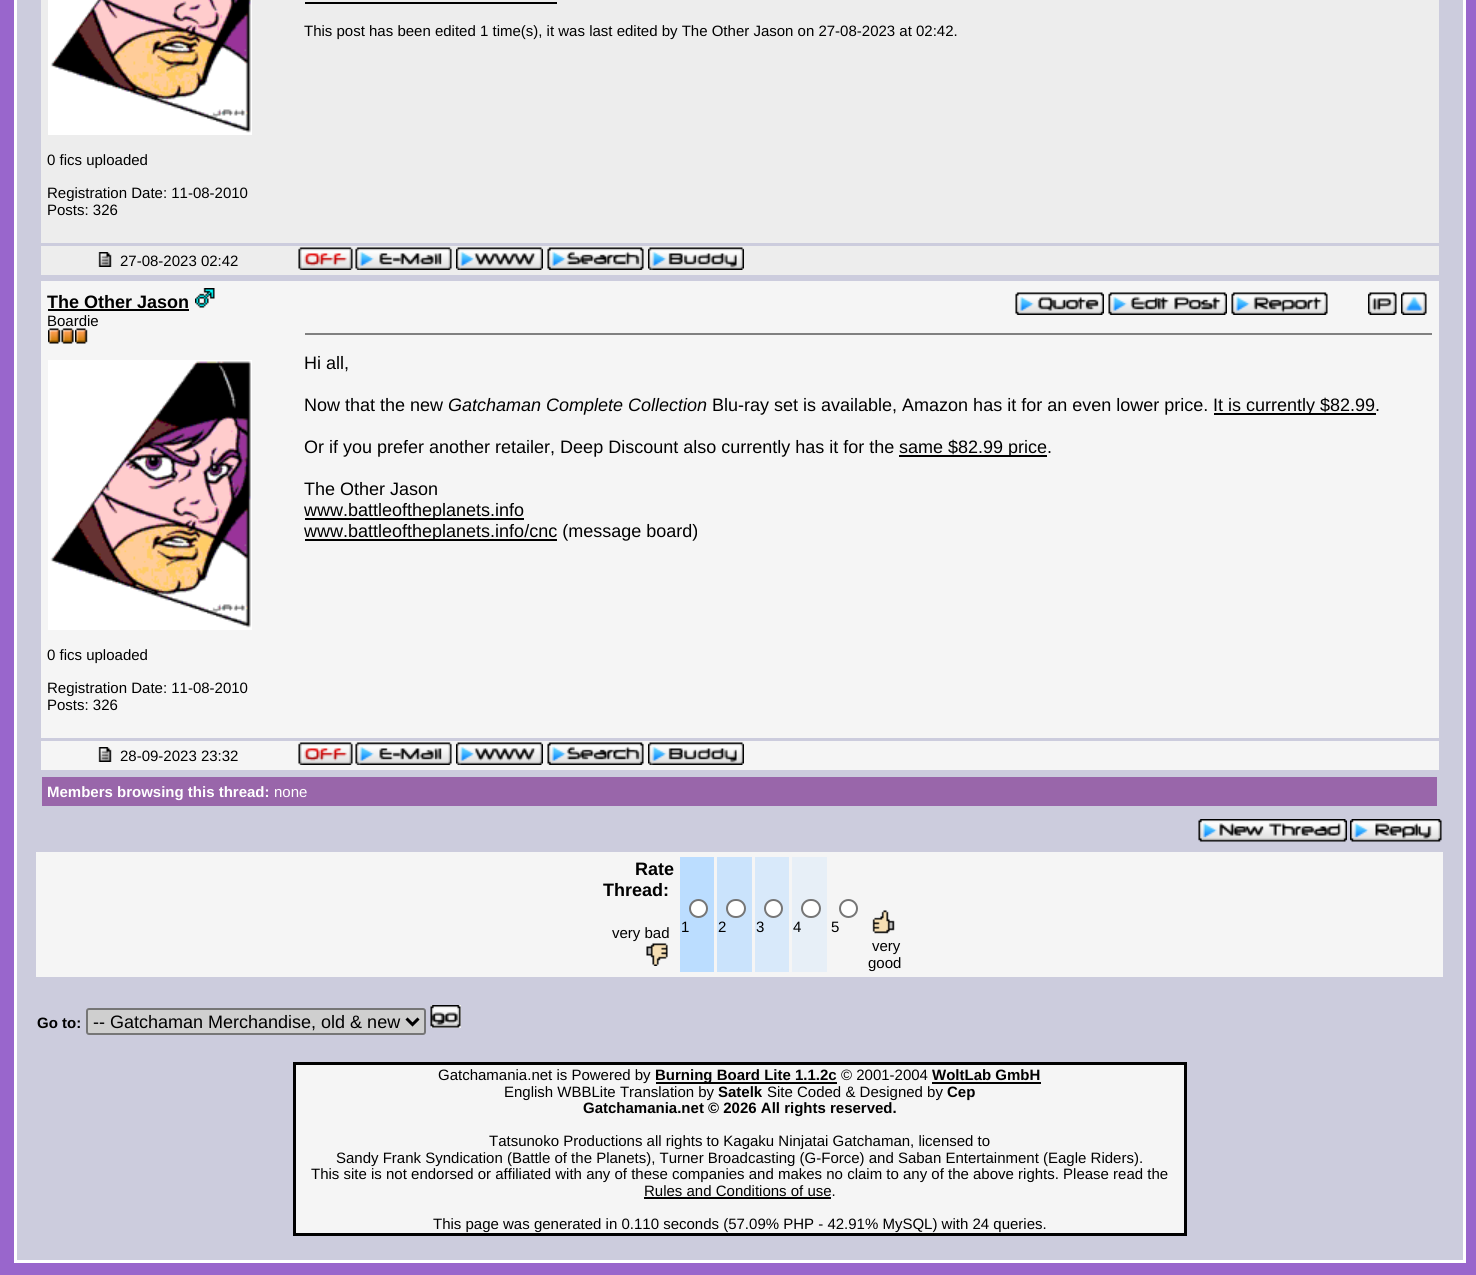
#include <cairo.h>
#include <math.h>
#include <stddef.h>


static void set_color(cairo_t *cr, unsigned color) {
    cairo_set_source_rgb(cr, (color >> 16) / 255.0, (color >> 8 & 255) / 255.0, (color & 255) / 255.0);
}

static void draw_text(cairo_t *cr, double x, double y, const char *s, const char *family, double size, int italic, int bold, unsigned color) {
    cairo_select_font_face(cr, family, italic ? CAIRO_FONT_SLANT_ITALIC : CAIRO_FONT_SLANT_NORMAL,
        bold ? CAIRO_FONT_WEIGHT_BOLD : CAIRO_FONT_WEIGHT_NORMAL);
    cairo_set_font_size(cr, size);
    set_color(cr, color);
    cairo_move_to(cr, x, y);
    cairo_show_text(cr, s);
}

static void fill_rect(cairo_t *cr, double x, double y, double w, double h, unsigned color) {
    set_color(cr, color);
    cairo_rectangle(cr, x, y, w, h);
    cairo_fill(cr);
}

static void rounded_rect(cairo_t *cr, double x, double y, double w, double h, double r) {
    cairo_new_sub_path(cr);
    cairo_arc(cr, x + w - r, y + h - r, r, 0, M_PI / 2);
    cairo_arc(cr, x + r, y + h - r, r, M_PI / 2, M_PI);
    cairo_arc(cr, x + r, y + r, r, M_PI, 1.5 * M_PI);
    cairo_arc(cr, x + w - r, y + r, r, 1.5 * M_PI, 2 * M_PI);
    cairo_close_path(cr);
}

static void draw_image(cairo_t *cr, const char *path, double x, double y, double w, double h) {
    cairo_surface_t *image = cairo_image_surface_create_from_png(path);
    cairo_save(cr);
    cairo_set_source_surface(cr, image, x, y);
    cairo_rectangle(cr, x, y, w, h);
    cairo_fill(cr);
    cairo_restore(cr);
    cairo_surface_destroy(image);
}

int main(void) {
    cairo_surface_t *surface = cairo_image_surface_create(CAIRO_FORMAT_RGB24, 1476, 1275);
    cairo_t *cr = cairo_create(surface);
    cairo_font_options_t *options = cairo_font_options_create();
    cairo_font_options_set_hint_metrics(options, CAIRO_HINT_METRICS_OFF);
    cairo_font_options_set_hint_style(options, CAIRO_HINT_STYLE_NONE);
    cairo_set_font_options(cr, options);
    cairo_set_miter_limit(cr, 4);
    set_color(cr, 0x9966CC);
    cairo_paint(cr);
    fill_rect(cr, 14, 0, 1452, 1263, 0xFFFFFF);
    fill_rect(cr, 17, 0, 1446, 1260, 0xCCCCDD);
    fill_rect(cr, 41, 0, 1398, 243, 0xEDEDED);
    fill_rect(cr, 305, 2, 252, 2, 0x000000);
    draw_text(cr, 304, 36, "This post has been edited 1 time(s), it was last edited by The Other Jason on 27-08-2023 at 02:42.", "Liberation Sans", 15, 0, 0, 0x000000);
    draw_image(cr, "assets/img1.png", 48, 0, 204, 135);
    draw_text(cr, 47, 165, "0 fics uploaded", "Liberation Sans", 15, 0, 0, 0x000000);
    draw_text(cr, 47, 198, "Registration Date: 11-08-2010", "Liberation Sans", 15, 0, 0, 0x000000);
    draw_text(cr, 47, 215, "Posts: 326", "Liberation Sans", 15, 0, 0, 0x000000);
    fill_rect(cr, 41, 246, 1398, 29, 0xEDEDED);
    draw_image(cr, "assets/img2.png", 98, 252, 14, 15);
    draw_text(cr, 120, 266, "27-08-2023 02:42", "Liberation Sans", 15, 0, 0, 0x000000);
    draw_image(cr, "assets/img3.png", 298, 247, 55, 23);
    draw_image(cr, "assets/img4.png", 355, 247, 97, 23);
    draw_image(cr, "assets/img5.png", 456, 247, 87, 23);
    draw_image(cr, "assets/img6.png", 547, 247, 97, 23);
    draw_image(cr, "assets/img7.png", 648, 247, 96, 23);
    fill_rect(cr, 41, 281, 1398, 457, 0xF5F5F5);
    draw_text(cr, 47, 308, "The Other Jason", "Liberation Sans", 18, 0, 1, 0x000000);
    fill_rect(cr, 48, 309, 141, 2, 0x000000);
    draw_image(cr, "assets/img8.png", 195, 288, 20, 20);
    draw_text(cr, 47, 326, "Boardie", "Liberation Sans", 15, 0, 0, 0x000000);
    draw_image(cr, "assets/img9.png", 48, 328, 13, 16);
    draw_image(cr, "assets/img10.png", 61, 328, 13, 16);
    draw_image(cr, "assets/img9.png", 75, 328, 13, 16);
    draw_image(cr, "assets/img11.png", 48, 360, 204, 270);
    draw_text(cr, 47, 660, "0 fics uploaded", "Liberation Sans", 15, 0, 0, 0x000000);
    draw_text(cr, 47, 693, "Registration Date: 11-08-2010", "Liberation Sans", 15, 0, 0, 0x000000);
    draw_text(cr, 47, 710, "Posts: 326", "Liberation Sans", 15, 0, 0, 0x000000);
    draw_image(cr, "assets/img12.png", 1015, 292, 89, 23);
    draw_image(cr, "assets/img13.png", 1108, 292, 119, 23);
    draw_image(cr, "assets/img14.png", 1231, 292, 97, 23);
    draw_image(cr, "assets/img15.png", 1368, 292, 29, 23);
    draw_image(cr, "assets/img16.png", 1401, 292, 26, 23);
    fill_rect(cr, 305, 333, 1127, 2, 0x808080);
    draw_text(cr, 304, 369, "Hi all,", "Liberation Sans", 18, 0, 0, 0x000000);
    draw_text(cr, 304, 411, "Now that the new", "Liberation Sans", 18, 0, 0, 0x000000);
    draw_text(cr, 448, 411, "Gatchaman Complete Collection", "Liberation Sans", 18, 1, 0, 0x000000);
    draw_text(cr, 712, 411, "Blu-ray set is available, Amazon has it for an even lower price.", "Liberation Sans", 18, 0, 0, 0x000000);
    fill_rect(cr, 1214, 413, 162, 2, 0x000000);
    draw_text(cr, 1213, 411, "It is currently $82.99.", "Liberation Sans", 18, 0, 0, 0x000000);
    draw_text(cr, 304, 453, "Or if you prefer another retailer, Deep Discount also currently has it for the", "Liberation Sans", 18, 0, 0, 0x000000);
    fill_rect(cr, 899, 455, 148, 2, 0x000000);
    draw_text(cr, 899, 453, "same $82.99 price.", "Liberation Sans", 18, 0, 0, 0x000000);
    draw_text(cr, 304, 495, "The Other Jason", "Liberation Sans", 18, 0, 0, 0x000000);
    fill_rect(cr, 305, 518, 219, 2, 0x000000);
    draw_text(cr, 304, 516, "www.battleoftheplanets.info", "Liberation Sans", 18, 0, 0, 0x000000);
    fill_rect(cr, 305, 539, 252, 2, 0x000000);
    draw_text(cr, 304, 537, "www.battleoftheplanets.info/cnc (message board)", "Liberation Sans", 18, 0, 0, 0x000000);
    fill_rect(cr, 41, 741, 1398, 29, 0xF5F5F5);
    draw_image(cr, "assets/img17.png", 98, 747, 14, 15);
    draw_text(cr, 120, 761, "28-09-2023 23:32", "Liberation Sans", 15, 0, 0, 0x000000);
    draw_image(cr, "assets/img18.png", 298, 742, 55, 23);
    draw_image(cr, "assets/img19.png", 355, 742, 97, 23);
    draw_image(cr, "assets/img20.png", 456, 742, 87, 23);
    draw_image(cr, "assets/img21.png", 547, 742, 97, 23);
    draw_image(cr, "assets/img22.png", 648, 742, 96, 23);
    fill_rect(cr, 42, 777, 1395, 29, 0x9966AA);
    draw_text(cr, 47, 797, "Members browsing this thread:", "Liberation Sans", 15, 0, 1, 0xFFFFFF);
    draw_text(cr, 274, 797, "none", "Liberation Sans", 15, 0, 0, 0xFFFFFF);
    draw_image(cr, "assets/img23.png", 1198, 819, 149, 23);
    draw_image(cr, "assets/img24.png", 1350, 819, 92, 23);
    fill_rect(cr, 36, 852, 1407, 125, 0xF5F5F5);
    draw_text(cr, 635, 875, "Rate", "Liberation Sans", 18, 0, 1, 0x000000);
    draw_text(cr, 603, 896, "Thread:", "Liberation Sans", 18, 0, 1, 0x000000);
    draw_text(cr, 612, 938, "very bad", "Liberation Sans", 15, 0, 0, 0x000000);
    draw_image(cr, "assets/img25.png", 646, 943, 22, 23);
    fill_rect(cr, 680, 857, 34, 115, 0xBBDDFF);
    set_color(cr, 0xFFFFFF);
    cairo_arc(cr, 698.5, 908.5, 8.5, 0, 2 * M_PI);
    cairo_fill_preserve(cr);
    set_color(cr, 0x767676);
    cairo_stroke(cr);
    draw_text(cr, 681, 932, "1", "Liberation Sans", 15, 0, 0, 0x000000);
    fill_rect(cr, 717, 857, 35, 115, 0xCAE3FC);
    set_color(cr, 0xFFFFFF);
    rounded_rect(cr, 727, 900, 18, 17, 8.5);
    cairo_fill_preserve(cr);
    set_color(cr, 0x767676);
    cairo_stroke(cr);
    draw_text(cr, 718, 932, "2", "Liberation Sans", 15, 0, 0, 0x000000);
    fill_rect(cr, 755, 857, 34, 115, 0xD8E9FA);
    set_color(cr, 0xFFFFFF);
    cairo_new_path(cr);
    cairo_arc(cr, 773.5, 908.5, 8.5, 0, 2 * M_PI);
    cairo_fill_preserve(cr);
    set_color(cr, 0x767676);
    cairo_stroke(cr);
    draw_text(cr, 756, 932, "3", "Liberation Sans", 15, 0, 0, 0x000000);
    fill_rect(cr, 792, 857, 35, 115, 0xE7EFF7);
    set_color(cr, 0xFFFFFF);
    rounded_rect(cr, 802, 900, 18, 17, 8.5);
    cairo_fill_preserve(cr);
    set_color(cr, 0x767676);
    cairo_stroke(cr);
    draw_text(cr, 793, 932, "4", "Liberation Sans", 15, 0, 0, 0x000000);
    set_color(cr, 0xFFFFFF);
    cairo_new_path(cr);
    cairo_arc(cr, 848.5, 908.5, 8.5, 0, 2 * M_PI);
    cairo_fill_preserve(cr);
    set_color(cr, 0x767676);
    cairo_stroke(cr);
    draw_text(cr, 831, 932, "5", "Liberation Sans", 15, 0, 0, 0x000000);
    draw_image(cr, "assets/img26.png", 872, 910, 23, 24);
    draw_text(cr, 872, 951, "very", "Liberation Sans", 15, 0, 0, 0x000000);
    draw_text(cr, 868, 968, "good", "Liberation Sans", 15, 0, 0, 0x000000);
    draw_text(cr, 37, 1028, "Go to:", "Liberation Sans", 15, 0, 1, 0x000000);
    set_color(cr, 0xCFCFCF);
    rounded_rect(cr, 87, 1009, 338, 25, 2);
    cairo_fill_preserve(cr);
    set_color(cr, 0x767676);
    cairo_stroke(cr);
    cairo_new_path(cr);
    cairo_move_to(cr, 406.5, 1018.5);
    cairo_line_to(cr, 412.5, 1024.5);
    cairo_line_to(cr, 418.5, 1018.5);
    set_color(cr, 0x000000);
    cairo_set_line_width(cr, 3);
    cairo_stroke(cr);
    draw_text(cr, 93, 1028, "-- Gatchaman Merchandise, old & new", "Liberation Sans", 18, 0, 0, 0x000000);
    fill_rect(cr, 431, 1005, 30, 23, 0xF5F5F5);
    draw_image(cr, "assets/img27.png", 430, 1005, 31, 23);
    fill_rect(cr, 293, 1062, 894, 174, 0x000000);
    fill_rect(cr, 296, 1065, 888, 168, 0xF5F5F5);
    draw_text(cr, 438, 1080, "Gatchamania.net is Powered by", "Liberation Sans", 15, 0, 0, 0x000000);
    fill_rect(cr, 656, 1082, 181, 2, 0x000000);
    draw_text(cr, 655, 1080, "Burning Board Lite 1.1.2c", "Liberation Sans", 15, 0, 1, 0x000000);
    draw_text(cr, 841, 1080, "© 2001-2004", "Liberation Sans", 15, 0, 0, 0x000000);
    draw_text(cr, 932, 1080, "WoltLab GmbH", "Liberation Sans", 15, 0, 1, 0x000000);
    fill_rect(cr, 932, 1082, 109, 2, 0x000000);
    draw_text(cr, 504, 1097, "English WBBLite Translation by", "Liberation Sans", 15, 0, 0, 0x000000);
    draw_text(cr, 718, 1097, "Satelk", "Liberation Sans", 15, 0, 1, 0x000000);
    draw_text(cr, 767, 1097, "Site Coded & Designed by", "Liberation Sans", 15, 0, 0, 0x000000);
    draw_text(cr, 947, 1097, "Cep", "Liberation Sans", 15, 0, 1, 0x000000);
    draw_text(cr, 583, 1113, "Gatchamania.net © 2026 All rights reserved.", "Liberation Sans", 15, 0, 1, 0x000000);
    draw_text(cr, 489, 1146, "Tatsunoko Productions all rights to Kagaku Ninjatai Gatchaman, licensed to", "Liberation Sans", 15, 0, 0, 0x000000);
    draw_text(cr, 336, 1163, "Sandy Frank Syndication (Battle of the Planets), Turner Broadcasting (G-Force) and Saban Entertainment (Eagle Riders).", "Liberation Sans", 15, 0, 0, 0x000000);
    draw_text(cr, 311, 1179, "This site is not endorsed or affiliated with any of these companies and makes no claim to any of the above rights. Please read the", "Liberation Sans", 15, 0, 0, 0x000000);
    draw_text(cr, 644, 1196, "Rules and Conditions of use.", "Liberation Sans", 15, 0, 0, 0x000000);
    fill_rect(cr, 644, 1197, 187, 2, 0x000000);
    draw_text(cr, 433, 1229, "This page was generated in 0.110 seconds (57.09% PHP - 42.91% MySQL) with 24 queries.", "Liberation Sans", 15, 0, 0, 0x000000);
    cairo_surface_write_to_png(surface, "output.png");
    cairo_font_options_destroy(options);
    cairo_destroy(cr);
    cairo_surface_destroy(surface);
    return 0;
}
